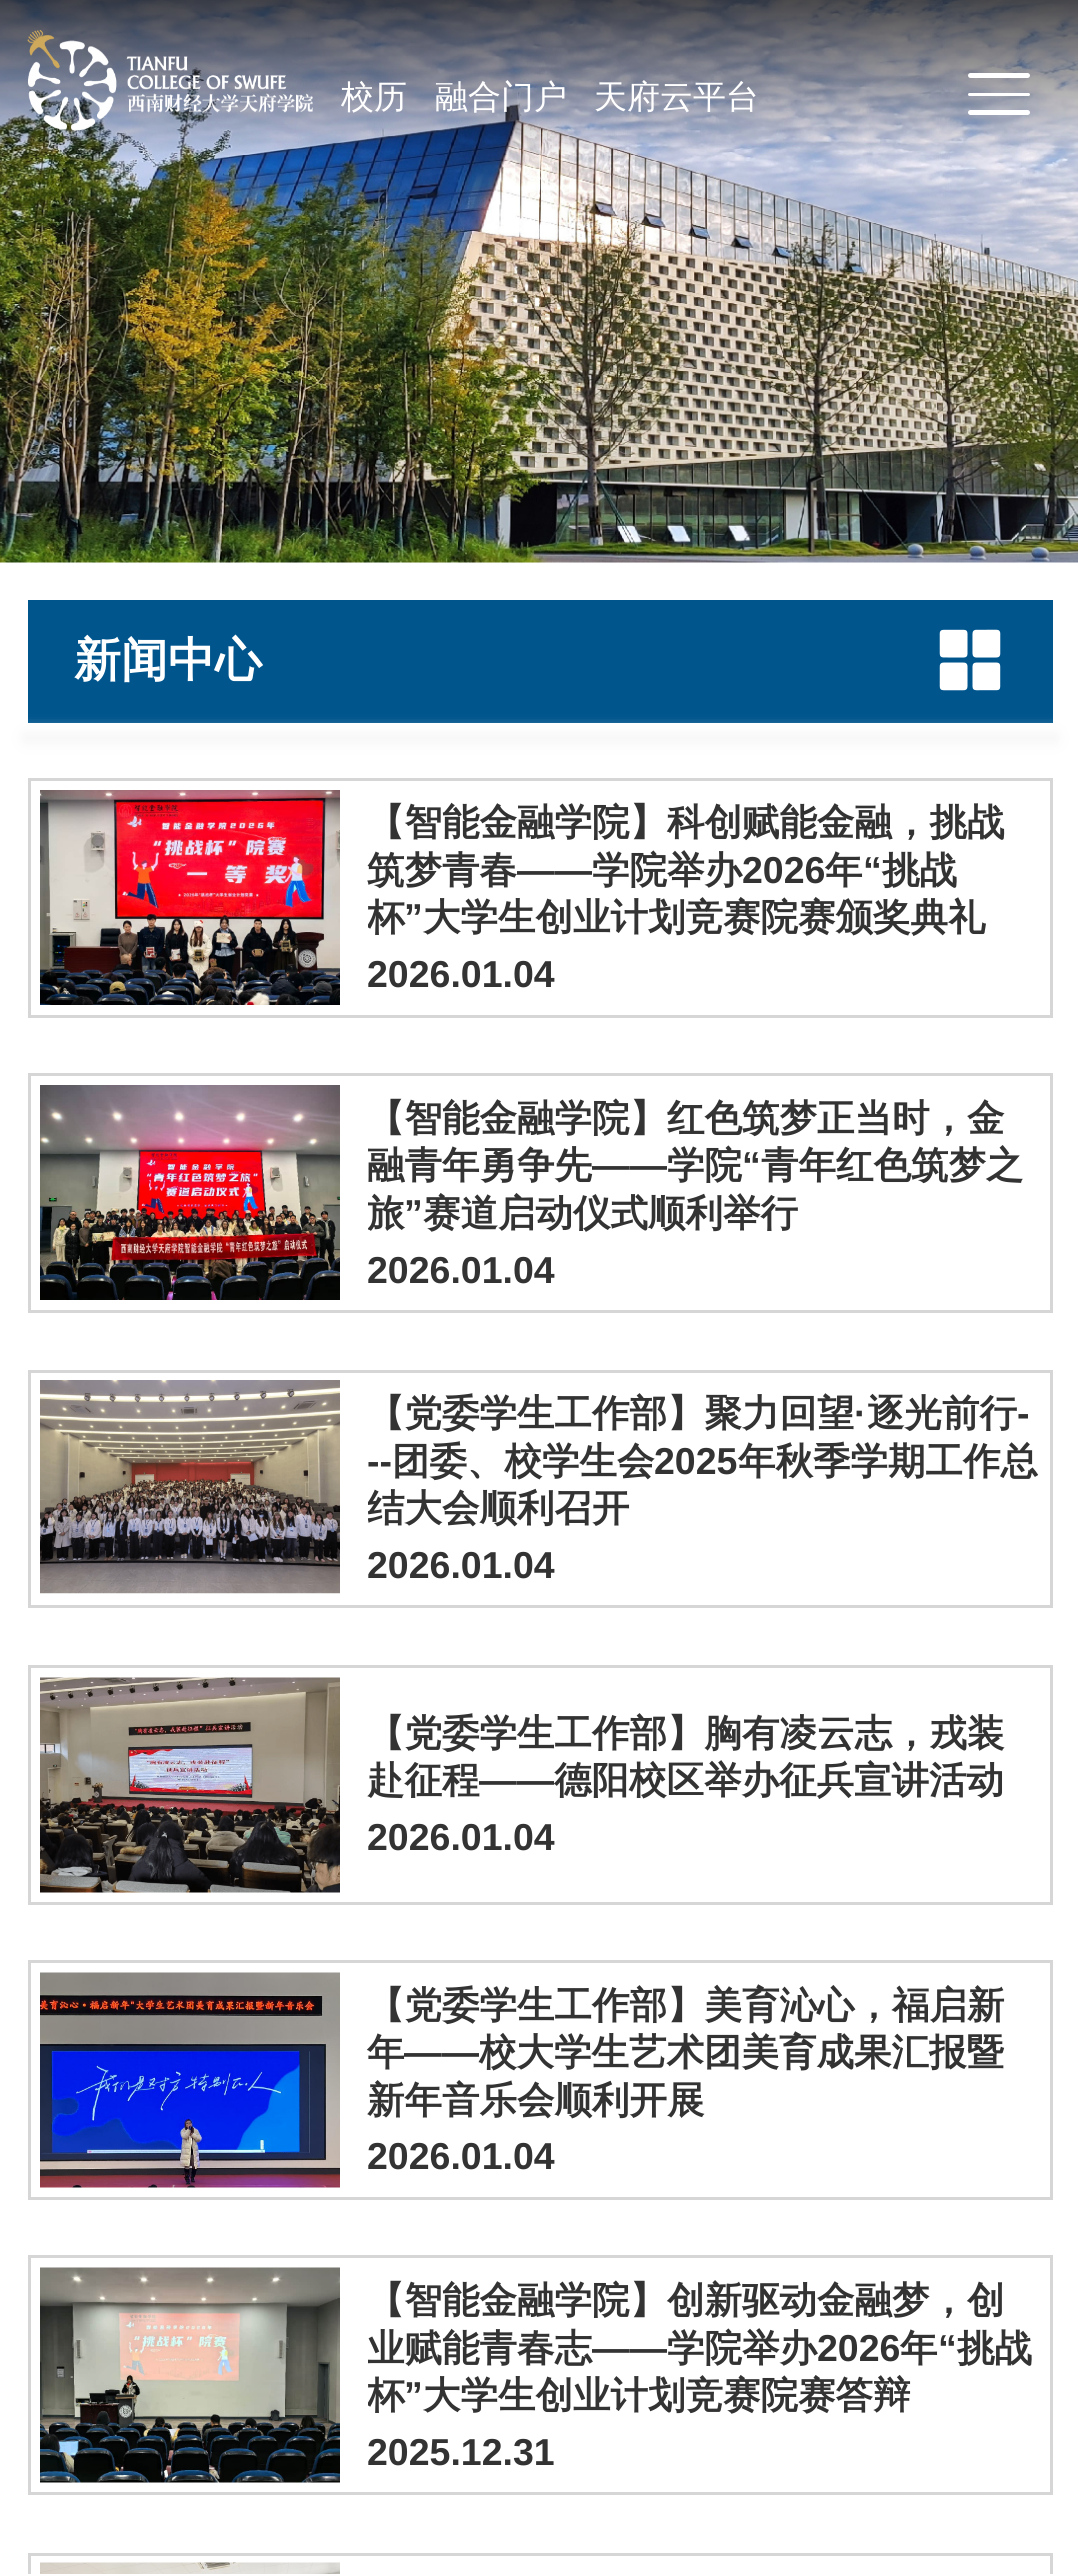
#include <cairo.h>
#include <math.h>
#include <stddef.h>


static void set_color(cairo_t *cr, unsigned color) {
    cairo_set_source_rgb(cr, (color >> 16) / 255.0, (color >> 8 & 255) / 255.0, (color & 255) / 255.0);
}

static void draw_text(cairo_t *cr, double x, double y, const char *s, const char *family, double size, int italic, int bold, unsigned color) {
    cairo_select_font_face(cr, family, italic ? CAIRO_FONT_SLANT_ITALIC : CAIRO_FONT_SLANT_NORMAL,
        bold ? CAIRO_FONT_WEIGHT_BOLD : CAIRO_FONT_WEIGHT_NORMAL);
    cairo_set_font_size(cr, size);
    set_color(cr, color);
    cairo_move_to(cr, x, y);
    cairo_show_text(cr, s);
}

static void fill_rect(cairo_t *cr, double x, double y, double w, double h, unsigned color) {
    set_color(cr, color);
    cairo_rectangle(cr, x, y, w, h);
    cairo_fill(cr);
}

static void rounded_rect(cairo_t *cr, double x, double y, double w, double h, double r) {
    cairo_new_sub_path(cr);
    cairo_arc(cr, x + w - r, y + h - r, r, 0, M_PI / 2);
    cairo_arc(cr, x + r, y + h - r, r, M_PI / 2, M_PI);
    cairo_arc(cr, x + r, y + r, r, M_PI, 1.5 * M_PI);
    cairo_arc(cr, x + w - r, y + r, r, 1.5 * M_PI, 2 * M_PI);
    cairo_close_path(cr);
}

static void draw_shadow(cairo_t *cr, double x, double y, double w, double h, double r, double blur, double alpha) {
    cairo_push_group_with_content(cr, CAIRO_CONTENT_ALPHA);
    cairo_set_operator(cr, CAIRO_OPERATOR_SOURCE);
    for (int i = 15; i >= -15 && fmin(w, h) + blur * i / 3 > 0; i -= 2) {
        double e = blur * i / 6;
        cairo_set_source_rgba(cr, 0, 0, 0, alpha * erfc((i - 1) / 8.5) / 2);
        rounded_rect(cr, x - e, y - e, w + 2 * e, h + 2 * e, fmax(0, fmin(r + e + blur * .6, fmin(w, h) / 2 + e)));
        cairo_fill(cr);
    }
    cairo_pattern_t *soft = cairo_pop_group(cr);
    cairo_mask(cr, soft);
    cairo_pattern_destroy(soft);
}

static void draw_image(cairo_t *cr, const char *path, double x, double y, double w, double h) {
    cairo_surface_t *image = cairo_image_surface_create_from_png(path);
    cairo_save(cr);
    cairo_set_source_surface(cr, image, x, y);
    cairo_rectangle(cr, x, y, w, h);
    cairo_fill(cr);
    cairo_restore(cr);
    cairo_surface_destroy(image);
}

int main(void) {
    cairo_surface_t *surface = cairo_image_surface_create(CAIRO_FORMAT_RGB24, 1078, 2574);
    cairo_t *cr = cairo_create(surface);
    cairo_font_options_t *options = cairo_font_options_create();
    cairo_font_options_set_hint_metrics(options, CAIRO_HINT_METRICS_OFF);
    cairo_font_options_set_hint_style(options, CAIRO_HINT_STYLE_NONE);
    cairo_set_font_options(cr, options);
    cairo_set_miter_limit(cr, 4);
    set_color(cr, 0xFFFFFF);
    cairo_paint(cr);
    draw_image(cr, "assets/img1.png", 0, 0, 1078, 563);
    draw_image(cr, "assets/img2.png", 27, 30, 286, 101);
    draw_text(cr, 341, 108, "校历", "WenQuanYi Zen Hei Medium", 33, 0, 0, 0xFFFFFF);
    draw_text(cr, 435, 108, "融合门户", "WenQuanYi Zen Hei Medium", 33, 0, 0, 0xFFFFFF);
    draw_text(cr, 594, 108, "天府云平台", "WenQuanYi Zen Hei Medium", 33, 0, 0, 0xFFFFFF);
    rounded_rect(cr, 968, 73, 62, 5, 2.5);
    cairo_fill(cr);
    rounded_rect(cr, 968, 93, 62, 3, 1.5);
    cairo_fill(cr);
    rounded_rect(cr, 968, 110, 62, 5, 2.5);
    cairo_fill(cr);
    fill_rect(cr, 28, 600, 1025, 123, 0x00558D);
    draw_text(cr, 74, 676, "新闻中心", "WenQuanYi Zen Hei", 47, 0, 1, 0xFFFFFF);
    draw_image(cr, "assets/img3.png", 939, 629, 62, 62);
    set_color(cr, 0xF6F6F6);
    draw_shadow(cr, 23, 733, 1035, 10, 0, 7.5, 1);
    cairo_rectangle(cr, 29.5, 779.5, 1022, 237);
    set_color(cr, 0xD6D6D6);
    cairo_set_line_width(cr, 3);
    cairo_stroke(cr);
    draw_image(cr, "assets/img4.png", 40, 790, 300, 215);
    draw_text(cr, 367, 835, "【智能金融学院】科创赋能金融，挑战", "WenQuanYi Zen Hei", 37.5, 0, 1, 0x333333);
    draw_text(cr, 367, 883, "筑梦青春", "WenQuanYi Zen Hei", 37.5, 0, 1, 0x333333);
    draw_text(cr, 592, 883, "学院举办", "WenQuanYi Zen Hei", 37.5, 0, 1, 0x333333);
    draw_text(cr, 742, 883, "2026", "Liberation Sans", 37.5, 0, 1, 0x333333);
    draw_text(cr, 825, 883, "年", "WenQuanYi Zen Hei", 37.5, 0, 1, 0x333333);
    draw_text(cr, 863, 883, "“", "Liberation Sans", 37.5, 0, 1, 0x333333);
    draw_text(cr, 882, 883, "挑战", "WenQuanYi Zen Hei", 37.5, 0, 1, 0x333333);
    draw_text(cr, 517, 883, "——", "Liberation Sans", 37.5, 0, 1, 0x333333);
    cairo_save(cr);
    cairo_rectangle(cr, 368, 800, 672, 143);
    cairo_clip(cr);
    draw_text(cr, 367, 930, "杯", "WenQuanYi Zen Hei", 37.5, 0, 1, 0x333333);
    cairo_restore(cr);
    draw_text(cr, 404, 930, "”", "Liberation Sans", 37.5, 0, 1, 0x333333);
    draw_text(cr, 423, 930, "大学生创业计划竞赛院赛颁奖典礼", "WenQuanYi Zen Hei", 37.5, 0, 1, 0x333333);
    draw_text(cr, 367, 987, "2026.01.04", "Liberation Sans", 37.5, 0, 1, 0x333333);
    cairo_rectangle(cr, 29.5, 1074.5, 1022, 237);
    set_color(cr, 0xD6D6D6);
    cairo_stroke(cr);
    draw_image(cr, "assets/img5.png", 40, 1085, 300, 215);
    draw_text(cr, 367, 1131, "【智能金融学院】红色筑梦正当时，金", "WenQuanYi Zen Hei", 37.5, 0, 1, 0x333333);
    draw_text(cr, 367, 1178, "融青年勇争先", "WenQuanYi Zen Hei", 37.5, 0, 1, 0x333333);
    draw_text(cr, 667, 1178, "学院", "WenQuanYi Zen Hei", 37.5, 0, 1, 0x333333);
    draw_text(cr, 742, 1178, "“", "Liberation Sans", 37.5, 0, 1, 0x333333);
    draw_text(cr, 761, 1178, "青年红色筑梦之", "WenQuanYi Zen Hei", 37.5, 0, 1, 0x333333);
    draw_text(cr, 592, 1178, "——", "Liberation Sans", 37.5, 0, 1, 0x333333);
    cairo_save(cr);
    cairo_rectangle(cr, 368, 1095, 672, 143);
    cairo_clip(cr);
    draw_text(cr, 367, 1226, "旅", "WenQuanYi Zen Hei", 37.5, 0, 1, 0x333333);
    cairo_restore(cr);
    draw_text(cr, 404, 1226, "”", "Liberation Sans", 37.5, 0, 1, 0x333333);
    draw_text(cr, 423, 1226, "赛道启动仪式顺利举行", "WenQuanYi Zen Hei", 37.5, 0, 1, 0x333333);
    draw_text(cr, 367, 1283, "2026.01.04", "Liberation Sans", 37.5, 0, 1, 0x333333);
    cairo_rectangle(cr, 29.5, 1371.5, 1022, 235);
    set_color(cr, 0xD6D6D6);
    cairo_stroke(cr);
    draw_image(cr, "assets/img6.png", 40, 1380, 300, 214);
    draw_text(cr, 367, 1426, "【党委学生工作部】聚力回望", "WenQuanYi Zen Hei", 37.5, 0, 1, 0x333333);
    draw_text(cr, 854, 1426, "·", "Liberation Sans", 37.5, 0, 1, 0x333333);
    draw_text(cr, 867, 1426, "逐光前行", "WenQuanYi Zen Hei", 37.5, 0, 1, 0x333333);
    draw_text(cr, 1017, 1426, "-", "Liberation Sans", 37.5, 0, 1, 0x333333);
    draw_text(cr, 367, 1474, "--", "Liberation Sans", 37.5, 0, 1, 0x333333);
    draw_text(cr, 392, 1474, "团委、校学生会", "WenQuanYi Zen Hei", 37.5, 0, 1, 0x333333);
    draw_text(cr, 654, 1474, "2025", "Liberation Sans", 37.5, 0, 1, 0x333333);
    draw_text(cr, 738, 1474, "年秋季学期工作总", "WenQuanYi Zen Hei", 37.5, 0, 1, 0x333333);
    cairo_save(cr);
    cairo_rectangle(cr, 368, 1393, 672, 142);
    cairo_clip(cr);
    draw_text(cr, 367, 1521, "结大会顺利召开", "WenQuanYi Zen Hei", 37.5, 0, 1, 0x333333);
    cairo_restore(cr);
    draw_text(cr, 367, 1578, "2026.01.04", "Liberation Sans", 37.5, 0, 1, 0x333333);
    cairo_rectangle(cr, 29.5, 1666.5, 1022, 237);
    set_color(cr, 0xD6D6D6);
    cairo_stroke(cr);
    draw_image(cr, "assets/img7.png", 40, 1677, 300, 216);
    draw_text(cr, 367, 1746, "【党委学生工作部】胸有凌云志，戎装", "WenQuanYi Zen Hei", 37.5, 0, 1, 0x333333);
    draw_text(cr, 367, 1793, "赴征程", "WenQuanYi Zen Hei", 37.5, 0, 1, 0x333333);
    draw_text(cr, 479, 1793, "——", "Liberation Sans", 37.5, 0, 1, 0x333333);
    draw_text(cr, 554, 1793, "德阳校区举办征兵宣讲活动", "WenQuanYi Zen Hei", 37.5, 0, 1, 0x333333);
    draw_text(cr, 367, 1850, "2026.01.04", "Liberation Sans", 37.5, 0, 1, 0x333333);
    cairo_rectangle(cr, 29.5, 1961.5, 1022, 237);
    set_color(cr, 0xD6D6D6);
    cairo_stroke(cr);
    draw_image(cr, "assets/img8.png", 40, 1972, 300, 216);
    draw_text(cr, 367, 2018, "【党委学生工作部】美育沁心，福启新", "WenQuanYi Zen Hei", 37.5, 0, 1, 0x333333);
    draw_text(cr, 367, 2065, "年", "WenQuanYi Zen Hei", 37.5, 0, 1, 0x333333);
    draw_text(cr, 404, 2065, "——", "Liberation Sans", 37.5, 0, 1, 0x333333);
    draw_text(cr, 479, 2065, "校大学生艺术团美育成果汇报暨", "WenQuanYi Zen Hei", 37.5, 0, 1, 0x333333);
    draw_text(cr, 367, 2113, "新年音乐会顺利开展", "WenQuanYi Zen Hei", 37.5, 0, 1, 0x333333);
    draw_text(cr, 367, 2169, "2026.01.04", "Liberation Sans", 37.5, 0, 1, 0x333333);
    cairo_rectangle(cr, 29.5, 2256.5, 1022, 237);
    set_color(cr, 0xD6D6D6);
    cairo_stroke(cr);
    draw_image(cr, "assets/img9.png", 40, 2267, 300, 216);
    draw_text(cr, 367, 2313, "【智能金融学院】创新驱动金融梦，创", "WenQuanYi Zen Hei", 37.5, 0, 1, 0x333333);
    cairo_save(cr);
    cairo_rectangle(cr, 368, 2278, 672, 142);
    cairo_clip(cr);
    draw_text(cr, 367, 2361, "业赋能青春志", "WenQuanYi Zen Hei", 37.5, 0, 1, 0x333333);
    cairo_restore(cr);
    draw_text(cr, 667, 2361, "学院举办", "WenQuanYi Zen Hei", 37.5, 0, 1, 0x333333);
    draw_text(cr, 817, 2361, "2026", "Liberation Sans", 37.5, 0, 1, 0x333333);
    draw_text(cr, 900, 2361, "年", "WenQuanYi Zen Hei", 37.5, 0, 1, 0x333333);
    draw_text(cr, 938, 2361, "“", "Liberation Sans", 37.5, 0, 1, 0x333333);
    draw_text(cr, 957, 2361, "挑战", "WenQuanYi Zen Hei", 37.5, 0, 1, 0x333333);
    draw_text(cr, 592, 2361, "——", "Liberation Sans", 37.5, 0, 1, 0x333333);
    cairo_save(cr);
    cairo_rectangle(cr, 368, 2278, 672, 142);
    cairo_clip(cr);
    draw_text(cr, 367, 2408, "杯", "WenQuanYi Zen Hei", 37.5, 0, 1, 0x333333);
    cairo_restore(cr);
    draw_text(cr, 404, 2408, "”", "Liberation Sans", 37.5, 0, 1, 0x333333);
    draw_text(cr, 423, 2408, "大学生创业计划竞赛院赛答辩", "WenQuanYi Zen Hei", 37.5, 0, 1, 0x333333);
    draw_text(cr, 367, 2465, "2025.12.31", "Liberation Sans", 37.5, 0, 1, 0x333333);
    cairo_rectangle(cr, 29.5, 2554.5, 1022, 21);
    set_color(cr, 0xD6D6D6);
    cairo_stroke(cr);
    draw_image(cr, "assets/img10.png", 40, 2562, 300, 12);
    cairo_surface_write_to_png(surface, "output.png");
    cairo_font_options_destroy(options);
    cairo_destroy(cr);
    cairo_surface_destroy(surface);
    return 0;
}
